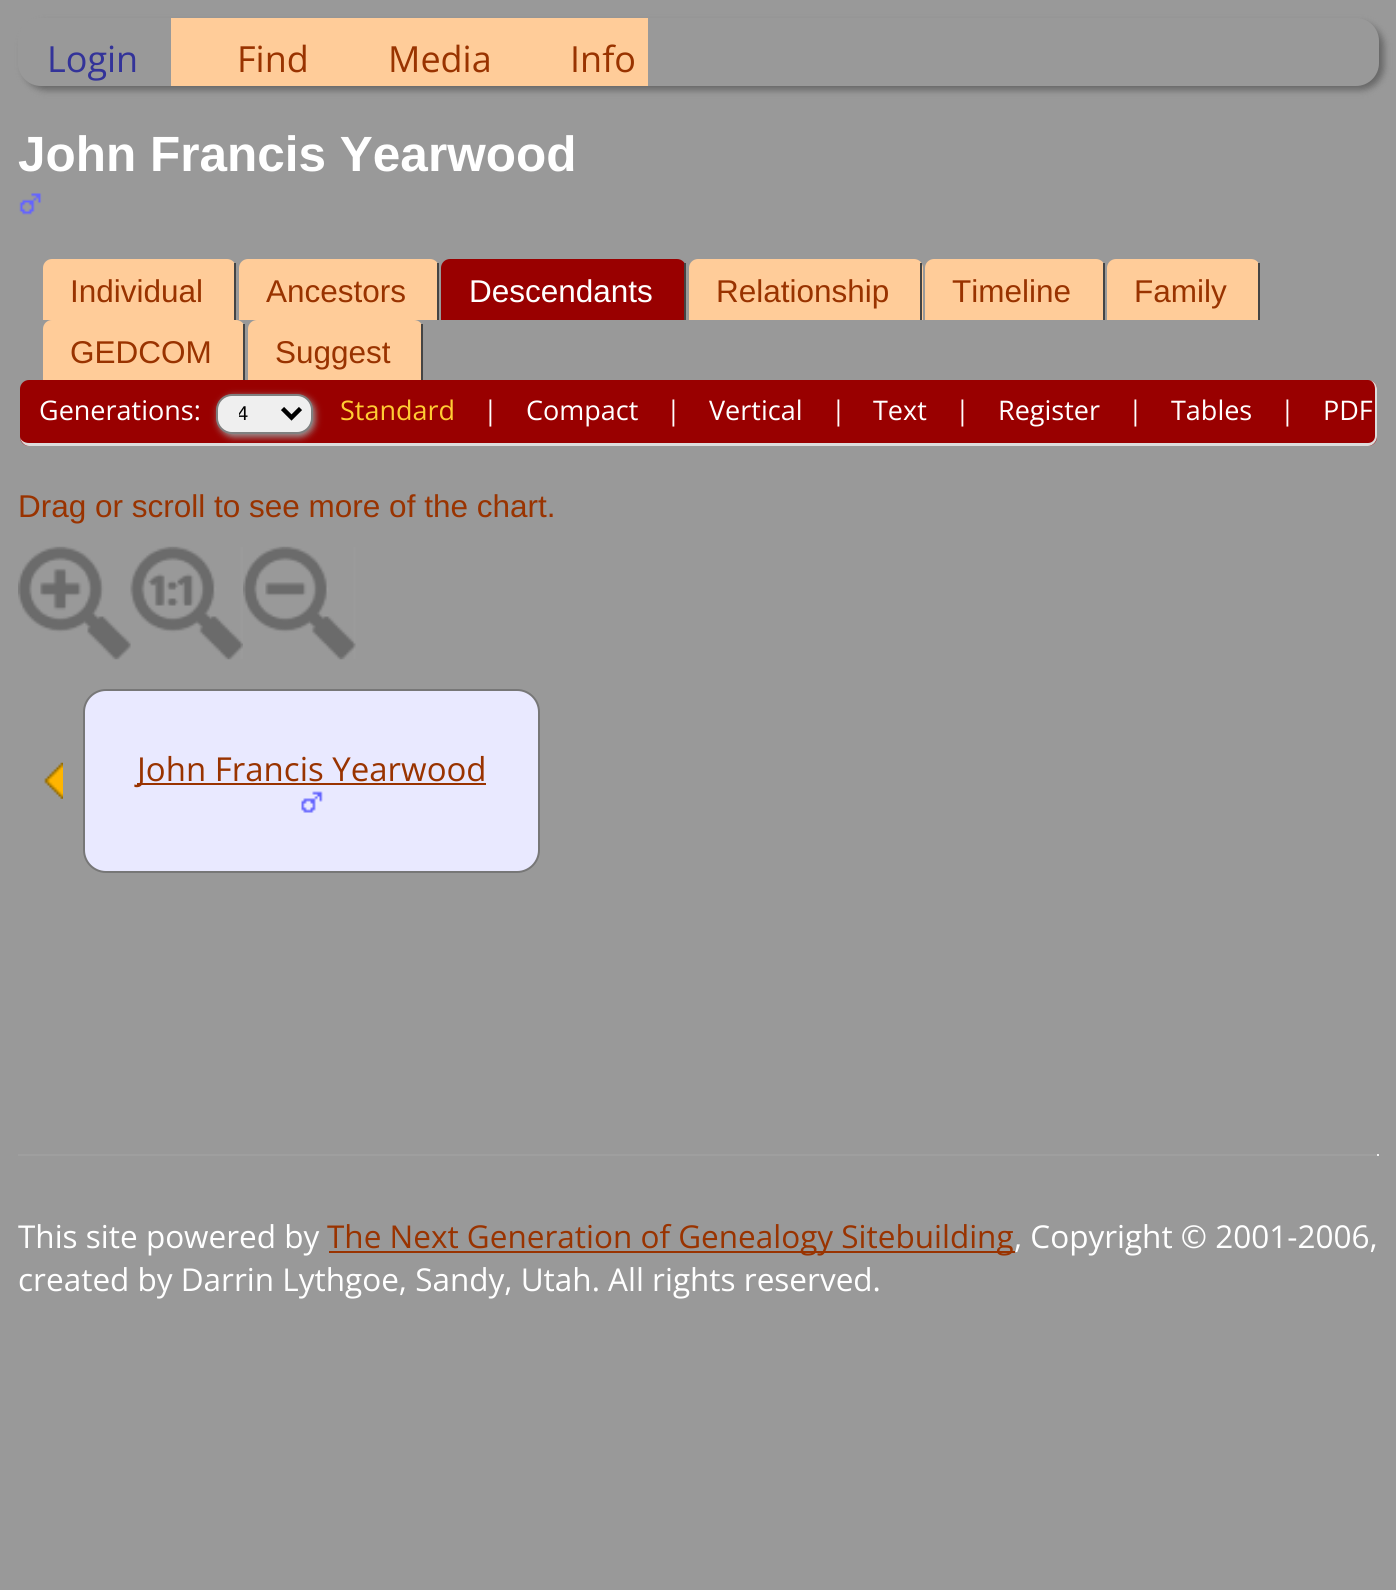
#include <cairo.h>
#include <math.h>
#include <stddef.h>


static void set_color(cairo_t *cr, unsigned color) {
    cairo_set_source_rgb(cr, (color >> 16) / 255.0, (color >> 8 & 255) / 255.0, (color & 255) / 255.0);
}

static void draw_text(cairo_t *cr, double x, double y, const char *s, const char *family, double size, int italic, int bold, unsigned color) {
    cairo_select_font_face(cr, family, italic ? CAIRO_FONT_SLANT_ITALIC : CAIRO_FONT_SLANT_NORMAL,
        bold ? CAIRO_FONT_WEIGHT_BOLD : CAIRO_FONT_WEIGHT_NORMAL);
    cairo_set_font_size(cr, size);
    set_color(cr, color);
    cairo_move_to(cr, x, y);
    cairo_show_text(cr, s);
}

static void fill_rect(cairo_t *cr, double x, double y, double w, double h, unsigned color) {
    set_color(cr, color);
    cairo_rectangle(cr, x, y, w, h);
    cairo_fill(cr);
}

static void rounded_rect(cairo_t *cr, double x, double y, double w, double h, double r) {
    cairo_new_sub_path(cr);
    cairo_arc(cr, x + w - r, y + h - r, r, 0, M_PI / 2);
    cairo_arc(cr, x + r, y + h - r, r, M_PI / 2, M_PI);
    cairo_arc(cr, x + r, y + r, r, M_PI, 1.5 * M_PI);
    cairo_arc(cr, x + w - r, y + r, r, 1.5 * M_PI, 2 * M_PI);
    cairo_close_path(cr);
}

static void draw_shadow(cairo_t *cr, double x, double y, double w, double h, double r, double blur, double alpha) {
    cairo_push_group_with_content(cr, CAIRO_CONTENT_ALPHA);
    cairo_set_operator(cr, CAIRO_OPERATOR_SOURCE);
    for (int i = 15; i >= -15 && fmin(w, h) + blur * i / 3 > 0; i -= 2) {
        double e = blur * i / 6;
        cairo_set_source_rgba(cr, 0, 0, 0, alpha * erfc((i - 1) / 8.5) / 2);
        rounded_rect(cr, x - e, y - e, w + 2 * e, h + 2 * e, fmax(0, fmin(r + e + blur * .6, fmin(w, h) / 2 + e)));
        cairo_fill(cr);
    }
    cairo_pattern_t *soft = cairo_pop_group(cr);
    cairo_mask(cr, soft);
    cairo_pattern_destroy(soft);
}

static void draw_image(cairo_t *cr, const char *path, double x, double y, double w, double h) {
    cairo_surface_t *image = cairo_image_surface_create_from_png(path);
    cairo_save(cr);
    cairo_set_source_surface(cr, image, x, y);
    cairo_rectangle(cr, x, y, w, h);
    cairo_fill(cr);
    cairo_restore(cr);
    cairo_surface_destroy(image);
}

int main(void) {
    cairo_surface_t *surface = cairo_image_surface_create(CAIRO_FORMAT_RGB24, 1396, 1590);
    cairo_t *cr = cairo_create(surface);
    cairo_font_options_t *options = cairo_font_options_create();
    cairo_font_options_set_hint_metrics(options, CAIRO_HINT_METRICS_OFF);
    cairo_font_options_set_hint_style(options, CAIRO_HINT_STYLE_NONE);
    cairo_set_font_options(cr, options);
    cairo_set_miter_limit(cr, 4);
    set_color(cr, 0x999999);
    cairo_paint(cr);
    set_color(cr, 0x666666);
    draw_shadow(cr, 23, 23, 1361, 67, 23, 3.5, 1);
    set_color(cr, 0x999999);
    rounded_rect(cr, 18, 18, 1361, 68, 23);
    cairo_fill(cr);
    draw_text(cr, 47, 72, "Login", "Open Sans", 36, 0, 0, 0x333399);
    fill_rect(cr, 171, 18, 477, 68, 0xFFCC99);
    draw_text(cr, 237, 72, "Find", "Open Sans", 36, 0, 0, 0x993300);
    draw_text(cr, 388, 72, "Media", "Open Sans", 36, 0, 0, 0x993300);
    draw_text(cr, 570, 72, "Info", "Open Sans", 36, 0, 0, 0x993300);
    draw_text(cr, 18, 171, "John Francis Yearwood", "Liberation Sans", 49.5, 0, 1, 0xFFFFFF);
    draw_image(cr, "assets/img1.png", 19, 193, 23, 22);
    set_color(cr, 0xFFCC99);
    cairo_new_path(cr);
    cairo_move_to(cr, 52, 259);
    cairo_line_to(cr, 227, 259);
    cairo_curve_to(cr, 232, 259, 236, 263, 236, 268);
    cairo_line_to(cr, 236, 320);
    cairo_line_to(cr, 43, 320);
    cairo_line_to(cr, 43, 268);
    cairo_curve_to(cr, 43, 263, 47, 259, 52, 259);
    cairo_close_path(cr);
    cairo_fill(cr);
    fill_rect(cr, 234, 263, 2, 57, 0x444444);
    draw_text(cr, 70, 302, "Individual", "Liberation Sans", 31.5, 0, 0, 0x993300);
    set_color(cr, 0xFFCC99);
    cairo_new_path(cr);
    cairo_move_to(cr, 248, 259);
    cairo_line_to(cr, 430, 259);
    cairo_curve_to(cr, 435, 259, 439, 263, 439, 268);
    cairo_line_to(cr, 439, 320);
    cairo_line_to(cr, 239, 320);
    cairo_line_to(cr, 239, 268);
    cairo_curve_to(cr, 239, 263, 243, 259, 248, 259);
    cairo_close_path(cr);
    cairo_fill(cr);
    fill_rect(cr, 437, 263, 2, 57, 0x444444);
    draw_text(cr, 266, 302, "Ancestors", "Liberation Sans", 31.5, 0, 0, 0x993300);
    set_color(cr, 0x990000);
    cairo_new_path(cr);
    cairo_move_to(cr, 450, 259);
    cairo_line_to(cr, 677, 259);
    cairo_curve_to(cr, 682, 259, 686, 263, 686, 268);
    cairo_line_to(cr, 686, 320);
    cairo_line_to(cr, 441, 320);
    cairo_line_to(cr, 441, 268);
    cairo_curve_to(cr, 441, 263, 445, 259, 450, 259);
    cairo_close_path(cr);
    cairo_fill(cr);
    fill_rect(cr, 684, 263, 2, 57, 0x444444);
    draw_text(cr, 469, 302, "Descendants", "Liberation Sans", 31.5, 0, 0, 0xFFFFFF);
    set_color(cr, 0xFFCC99);
    cairo_new_path(cr);
    cairo_move_to(cr, 698, 259);
    cairo_line_to(cr, 914, 259);
    cairo_curve_to(cr, 919, 259, 923, 263, 923, 268);
    cairo_line_to(cr, 923, 320);
    cairo_line_to(cr, 689, 320);
    cairo_line_to(cr, 689, 268);
    cairo_curve_to(cr, 689, 263, 693, 259, 698, 259);
    cairo_close_path(cr);
    cairo_fill(cr);
    fill_rect(cr, 920, 263, 2, 57, 0x444444);
    draw_text(cr, 716, 302, "Relationship", "Liberation Sans", 31.5, 0, 0, 0x993300);
    set_color(cr, 0xFFCC99);
    cairo_new_path(cr);
    cairo_move_to(cr, 934, 259);
    cairo_line_to(cr, 1096, 259);
    cairo_curve_to(cr, 1101, 259, 1105, 263, 1105, 268);
    cairo_line_to(cr, 1105, 320);
    cairo_line_to(cr, 925, 320);
    cairo_line_to(cr, 925, 268);
    cairo_curve_to(cr, 925, 263, 929, 259, 934, 259);
    cairo_close_path(cr);
    cairo_fill(cr);
    fill_rect(cr, 1103, 263, 2, 57, 0x444444);
    draw_text(cr, 952, 302, "Timeline", "Liberation Sans", 31.5, 0, 0, 0x993300);
    set_color(cr, 0xFFCC99);
    cairo_new_path(cr);
    cairo_move_to(cr, 1116, 259);
    cairo_line_to(cr, 1251, 259);
    cairo_curve_to(cr, 1256, 259, 1260, 263, 1260, 268);
    cairo_line_to(cr, 1260, 320);
    cairo_line_to(cr, 1107, 320);
    cairo_line_to(cr, 1107, 268);
    cairo_curve_to(cr, 1107, 263, 1111, 259, 1116, 259);
    cairo_close_path(cr);
    cairo_fill(cr);
    fill_rect(cr, 1258, 263, 2, 57, 0x444444);
    draw_text(cr, 1134, 302, "Family", "Liberation Sans", 31.5, 0, 0, 0x993300);
    set_color(cr, 0xFFCC99);
    cairo_new_path(cr);
    cairo_move_to(cr, 52, 320);
    cairo_line_to(cr, 236, 320);
    cairo_curve_to(cr, 241, 320, 245, 324, 245, 329);
    cairo_line_to(cr, 245, 380);
    cairo_line_to(cr, 43, 380);
    cairo_line_to(cr, 43, 329);
    cairo_curve_to(cr, 43, 324, 47, 320, 52, 320);
    cairo_close_path(cr);
    cairo_fill(cr);
    fill_rect(cr, 243, 324, 2, 56, 0x444444);
    draw_text(cr, 70, 363, "GEDCOM", "Liberation Sans", 31.5, 0, 0, 0x993300);
    set_color(cr, 0xFFCC99);
    cairo_new_path(cr);
    cairo_move_to(cr, 257, 320);
    cairo_line_to(cr, 414, 320);
    cairo_curve_to(cr, 419, 320, 423, 324, 423, 329);
    cairo_line_to(cr, 423, 380);
    cairo_line_to(cr, 248, 380);
    cairo_line_to(cr, 248, 329);
    cairo_curve_to(cr, 248, 324, 252, 320, 257, 320);
    cairo_close_path(cr);
    cairo_fill(cr);
    fill_rect(cr, 421, 324, 2, 56, 0x444444);
    draw_text(cr, 275, 363, "Suggest", "Liberation Sans", 31.5, 0, 0, 0x993300);
    set_color(cr, 0x990000);
    rounded_rect(cr, 20, 380, 1357, 66, 9);
    cairo_fill(cr);
    set_color(cr, 0xDDDDDD);
    cairo_set_fill_rule(cr, CAIRO_FILL_RULE_EVEN_ODD);
    cairo_new_path(cr);
    cairo_move_to(cr, 29, 380);
    cairo_line_to(cr, 1368, 380);
    cairo_curve_to(cr, 1373, 380, 1377, 384, 1377, 389);
    cairo_line_to(cr, 1377, 436);
    cairo_curve_to(cr, 1377, 441, 1373, 446, 1368, 446);
    cairo_line_to(cr, 29, 446);
    cairo_curve_to(cr, 24, 446, 20, 441, 20, 436);
    cairo_line_to(cr, 20, 389);
    cairo_curve_to(cr, 20, 384, 24, 380, 29, 380);
    cairo_close_path(cr);
    cairo_move_to(cr, 29, 380);
    cairo_line_to(cr, 1368, 380);
    cairo_curve_to(cr, 1372, 380, 1375, 384, 1375, 389);
    cairo_line_to(cr, 1375, 436);
    cairo_curve_to(cr, 1375, 440, 1372, 443, 1368, 443);
    cairo_line_to(cr, 29, 443);
    cairo_curve_to(cr, 24, 443, 20, 440, 20, 436);
    cairo_line_to(cr, 20, 389);
    cairo_curve_to(cr, 20, 384, 24, 380, 29, 380);
    cairo_close_path(cr);
    cairo_fill(cr);
    draw_text(cr, 39, 420, "Generations:", "Open Sans", 27, 0, 0, 0xFFFFFF);
    set_color(cr, 0x999999);
    draw_shadow(cr, 218, 396, 97, 41, 16, 3.5, 1);
    set_color(cr, 0xEFEFEF);
    rounded_rect(cr, 217, 395, 95, 38, 15);
    cairo_fill_preserve(cr);
    set_color(cr, 0x808080);
    cairo_stroke(cr);
    cairo_new_path(cr);
    cairo_move_to(cr, 282.5, 408.5);
    cairo_line_to(cr, 291.5, 417.5);
    cairo_line_to(cr, 300.5, 408.5);
    set_color(cr, 0x000000);
    cairo_set_line_width(cr, 4.5);
    cairo_stroke(cr);
    cairo_save(cr);
    cairo_set_fill_rule(cr, CAIRO_FILL_RULE_WINDING);
    cairo_rectangle(cr, 239, 401, 24, 27);
    cairo_clip(cr);
    draw_text(cr, 237, 420, "4", "Liberation Sans", 20, 0, 0, 0x000000);
    cairo_restore(cr);
    draw_text(cr, 340, 420, "Standard", "Open Sans", 27, 0, 0, 0xFFCC33);
    draw_text(cr, 483, 420, "|", "Open Sans", 27, 0, 0, 0xFFFFFF);
    draw_text(cr, 526, 420, "Compact", "Open Sans", 27, 0, 0, 0xFFFFFF);
    draw_text(cr, 666, 420, "|", "Open Sans", 27, 0, 0, 0xFFFFFF);
    draw_text(cr, 709, 420, "Vertical", "Open Sans", 27, 0, 0, 0xFFFFFF);
    draw_text(cr, 831, 420, "|", "Open Sans", 27, 0, 0, 0xFFFFFF);
    draw_text(cr, 873, 420, "Text", "Open Sans", 27, 0, 0, 0xFFFFFF);
    draw_text(cr, 955, 420, "|", "Open Sans", 27, 0, 0, 0xFFFFFF);
    draw_text(cr, 998, 420, "Register", "Open Sans", 27, 0, 0, 0xFFFFFF);
    draw_text(cr, 1128, 420, "|", "Open Sans", 27, 0, 0, 0xFFFFFF);
    draw_text(cr, 1171, 420, "Tables", "Open Sans", 27, 0, 0, 0xFFFFFF);
    draw_text(cr, 1280, 420, "|", "Open Sans", 27, 0, 0, 0xFFFFFF);
    draw_text(cr, 1323, 420, "PDF", "Open Sans", 27, 0, 0, 0xFFFFFF);
    draw_text(cr, 18, 517, "Drag or scroll to see more of the chart.", "Liberation Sans", 31.5, 0, 0, 0x993300);
    draw_image(cr, "assets/img2.png", 18, 546, 113, 114);
    draw_image(cr, "assets/img3.png", 130, 546, 113, 114);
    draw_image(cr, "assets/img4.png", 243, 546, 113, 114);
    draw_image(cr, "assets/img5.png", 44, 762, 19, 37);
    set_color(cr, 0xE9E9FF);
    rounded_rect(cr, 84, 690, 455, 182, 22);
    cairo_fill_preserve(cr);
    set_color(cr, 0x777777);
    cairo_set_line_width(cr, 2);
    cairo_stroke(cr);
    fill_rect(cr, 137, 783, 349, 2, 0x993300);
    draw_text(cr, 137, 781, "John Francis Yearwood", "Open Sans", 33, 0, 0, 0x993300);
    draw_image(cr, "assets/img6.png", 301, 791, 22, 22);
    fill_rect(cr, 18, 1154, 1361, 2, 0x9F9F9F);
    fill_rect(cr, 1377, 1154, 2, 2, 0xEEEEEE);
    draw_text(cr, 18, 1248, "This site powered by", "Open Sans", 31.5, 0, 0, 0xFFFFFF);
    fill_rect(cr, 329, 1251, 686, 2, 0x993300);
    draw_text(cr, 327, 1248, "The Next Generation of Genealogy Sitebuilding", "Open Sans", 31.5, 0, 0, 0x993300);
    draw_text(cr, 1014, 1248, ", Copyright © 2001-2006,", "Open Sans", 31.5, 0, 0, 0xFFFFFF);
    draw_text(cr, 18, 1291, "created by Darrin Lythgoe, Sandy, Utah. All rights reserved.", "Open Sans", 31.5, 0, 0, 0xFFFFFF);
    cairo_surface_write_to_png(surface, "output.png");
    cairo_font_options_destroy(options);
    cairo_destroy(cr);
    cairo_surface_destroy(surface);
    return 0;
}
